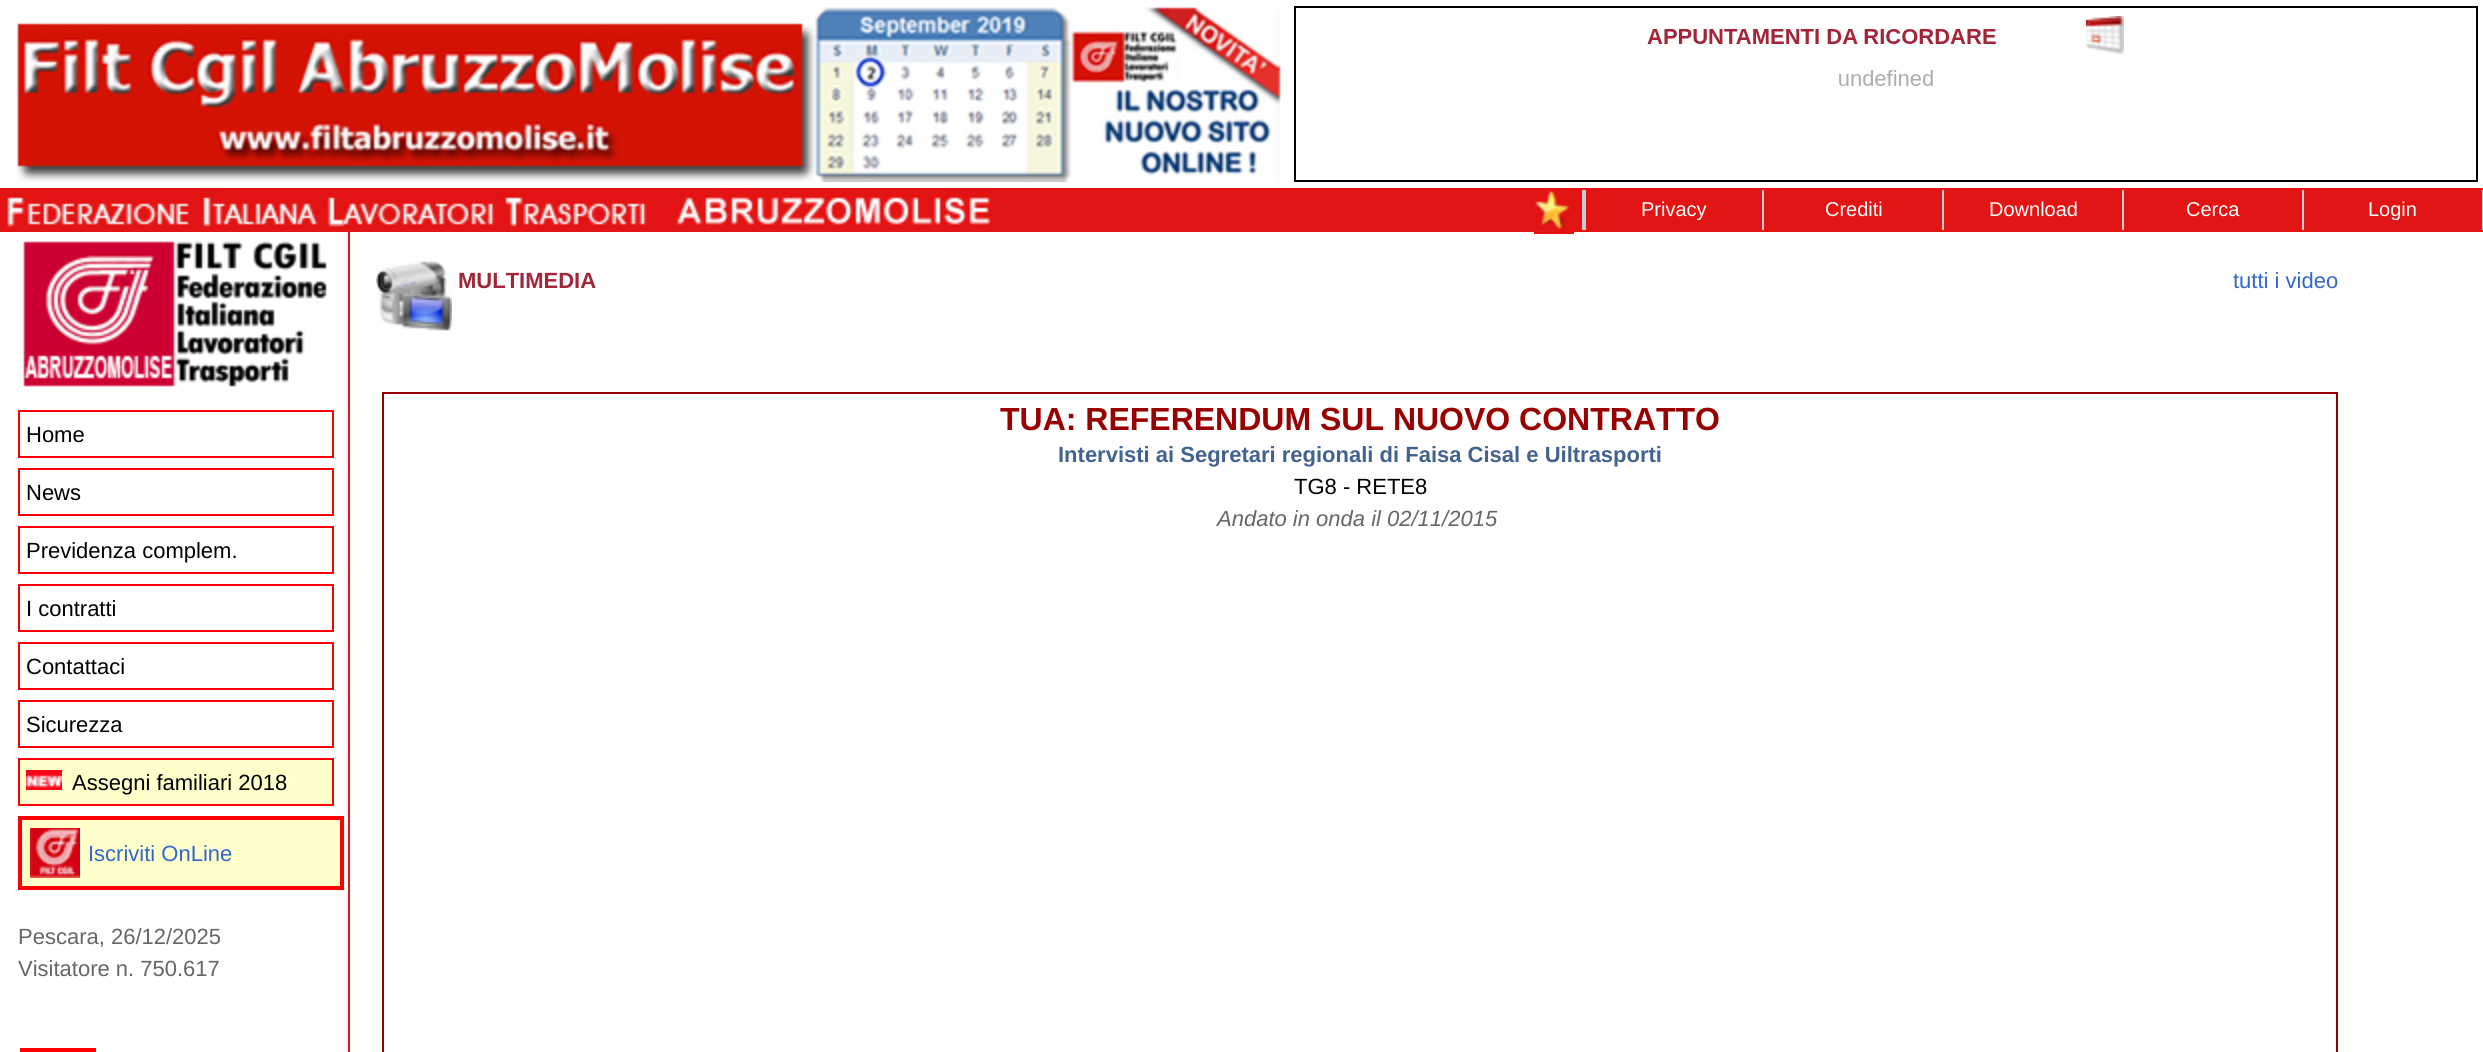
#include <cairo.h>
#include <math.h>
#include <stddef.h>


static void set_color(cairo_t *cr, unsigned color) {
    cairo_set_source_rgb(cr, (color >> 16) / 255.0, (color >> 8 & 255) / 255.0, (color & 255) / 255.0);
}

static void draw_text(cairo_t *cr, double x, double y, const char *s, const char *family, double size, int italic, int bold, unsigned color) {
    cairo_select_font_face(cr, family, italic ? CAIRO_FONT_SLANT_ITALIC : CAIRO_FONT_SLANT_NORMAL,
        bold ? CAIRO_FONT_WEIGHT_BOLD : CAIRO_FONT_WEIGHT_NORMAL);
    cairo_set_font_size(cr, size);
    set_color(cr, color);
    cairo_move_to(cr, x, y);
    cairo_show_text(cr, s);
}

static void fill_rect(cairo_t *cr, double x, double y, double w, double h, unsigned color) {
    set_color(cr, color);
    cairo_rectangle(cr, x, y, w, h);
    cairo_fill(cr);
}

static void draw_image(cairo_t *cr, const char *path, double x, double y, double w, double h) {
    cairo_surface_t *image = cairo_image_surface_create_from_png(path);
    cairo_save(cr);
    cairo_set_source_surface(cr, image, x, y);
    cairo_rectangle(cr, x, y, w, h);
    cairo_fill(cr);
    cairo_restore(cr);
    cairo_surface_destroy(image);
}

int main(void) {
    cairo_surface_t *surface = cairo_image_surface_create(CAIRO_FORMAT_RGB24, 2483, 1052);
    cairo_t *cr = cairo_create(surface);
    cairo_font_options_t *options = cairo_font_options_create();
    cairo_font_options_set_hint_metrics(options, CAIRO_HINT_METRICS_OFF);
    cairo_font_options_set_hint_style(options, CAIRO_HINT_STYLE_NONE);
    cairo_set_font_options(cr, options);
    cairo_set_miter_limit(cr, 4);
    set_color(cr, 0xFFFFFF);
    cairo_paint(cr);
    draw_image(cr, "assets/img1.png", 16, 7, 1265, 175);
    draw_image(cr, "assets/img2.png", 1294, 6, 1184, 176);
    fill_rect(cr, 0, 188, 2483, 44, 0xE31414);
    draw_image(cr, "assets/img3.png", 7, 188, 984, 40);
    draw_image(cr, "assets/img4.png", 1535, 191, 35, 38);
    fill_rect(cr, 1534, 232, 40, 2, 0xE31414);
    fill_rect(cr, 1582, 190, 4, 40, 0xCCCCCC);
    draw_text(cr, 1641, 216, "Privacy", "Liberation Sans", 20, 0, 0, 0xFFFFFF);
    fill_rect(cr, 1762, 190, 2, 40, 0xCCCCCC);
    draw_text(cr, 1825, 216, "Crediti", "Liberation Sans", 20, 0, 0, 0xFFFFFF);
    fill_rect(cr, 1942, 190, 2, 40, 0xCCCCCC);
    draw_text(cr, 1989, 216, "Download", "Liberation Sans", 20, 0, 0, 0xFFFFFF);
    fill_rect(cr, 2122, 190, 2, 40, 0xCCCCCC);
    draw_text(cr, 2186, 216, "Cerca", "Liberation Sans", 20, 0, 0, 0xFFFFFF);
    fill_rect(cr, 2302, 190, 2, 40, 0xCCCCCC);
    draw_text(cr, 2368, 216, "Login", "Liberation Sans", 20, 0, 0, 0xFFFFFF);
    fill_rect(cr, 2482, 190, 1, 40, 0xCCCCCC);
    fill_rect(cr, 348, 232, 2, 820, 0xE41414);
    draw_image(cr, "assets/img5.png", 376, 261, 76, 70);
    draw_text(cr, 458, 288, "MULTIMEDIA", "Liberation Sans", 22, 0, 1, 0xA22538);
    draw_text(cr, 2233, 288, "tutti i video", "Liberation Sans", 22, 0, 0, 0x3366CC);
    cairo_rectangle(cr, 383, 393, 1954, 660);
    set_color(cr, 0x990000);
    cairo_stroke(cr);
    draw_text(cr, 1000, 430, "TUA: REFERENDUM SUL NUOVO CONTRATTO", "Liberation Sans", 32, 0, 1, 0x990000);
    draw_text(cr, 1058, 462, "Intervisti ai Segretari regionali di Faisa Cisal e Uiltrasporti", "Liberation Sans", 22, 0, 1, 0x426391);
    draw_text(cr, 1294, 494, "TG8 - RETE8", "Liberation Sans", 22, 0, 0, 0x000000);
    draw_text(cr, 1217, 526, "Andato in onda il 02/11/2015", "Liberation Sans", 22, 1, 0, 0x666666);
    draw_image(cr, "assets/img6.png", 23, 241, 304, 146);
    cairo_rectangle(cr, 19, 411, 314, 46);
    set_color(cr, 0xFF0000);
    cairo_stroke(cr);
    draw_text(cr, 26, 442, "Home", "Liberation Sans", 22, 0, 0, 0x000000);
    cairo_rectangle(cr, 19, 469, 314, 46);
    set_color(cr, 0xFF0000);
    cairo_stroke(cr);
    draw_text(cr, 26, 500, "News", "Liberation Sans", 22, 0, 0, 0x000000);
    cairo_rectangle(cr, 19, 527, 314, 46);
    set_color(cr, 0xFF0000);
    cairo_stroke(cr);
    draw_text(cr, 26, 558, "Previdenza complem.", "Liberation Sans", 22, 0, 0, 0x000000);
    cairo_rectangle(cr, 19, 585, 314, 46);
    set_color(cr, 0xFF0000);
    cairo_stroke(cr);
    draw_text(cr, 26, 616, "I contratti", "Liberation Sans", 22, 0, 0, 0x000000);
    cairo_rectangle(cr, 19, 643, 314, 46);
    set_color(cr, 0xFF0000);
    cairo_stroke(cr);
    draw_text(cr, 26, 674, "Contattaci", "Liberation Sans", 22, 0, 0, 0x000000);
    cairo_rectangle(cr, 19, 701, 314, 46);
    set_color(cr, 0xFF0000);
    cairo_stroke(cr);
    draw_text(cr, 26, 732, "Sicurezza", "Liberation Sans", 22, 0, 0, 0x000000);
    set_color(cr, 0xFFFFCC);
    cairo_rectangle(cr, 19, 759, 314, 46);
    cairo_fill_preserve(cr);
    set_color(cr, 0xFF0000);
    cairo_stroke(cr);
    draw_image(cr, "assets/img7.png", 26, 770, 36, 20);
    draw_text(cr, 72, 790, "Assegni familiari 2018", "Liberation Sans", 22, 0, 0, 0x000000);
    set_color(cr, 0xFFFFCC);
    cairo_rectangle(cr, 20, 818, 322, 70);
    cairo_fill_preserve(cr);
    set_color(cr, 0xFF0000);
    cairo_set_line_width(cr, 4);
    cairo_stroke(cr);
    draw_image(cr, "assets/img8.png", 30, 828, 50, 50);
    draw_text(cr, 88, 861, "Iscriviti OnLine", "Liberation Sans", 22, 0, 0, 0x3366CC);
    draw_text(cr, 18, 944, "Pescara, 26/12/2025", "Liberation Sans", 22, 0, 0, 0x666666);
    draw_text(cr, 18, 976, "Visitatore n. 750.617", "Liberation Sans", 22, 0, 0, 0x666666);
    fill_rect(cr, 20, 1048, 76, 4, 0xFD0101);
    cairo_surface_write_to_png(surface, "output.png");
    cairo_font_options_destroy(options);
    cairo_destroy(cr);
    cairo_surface_destroy(surface);
    return 0;
}
